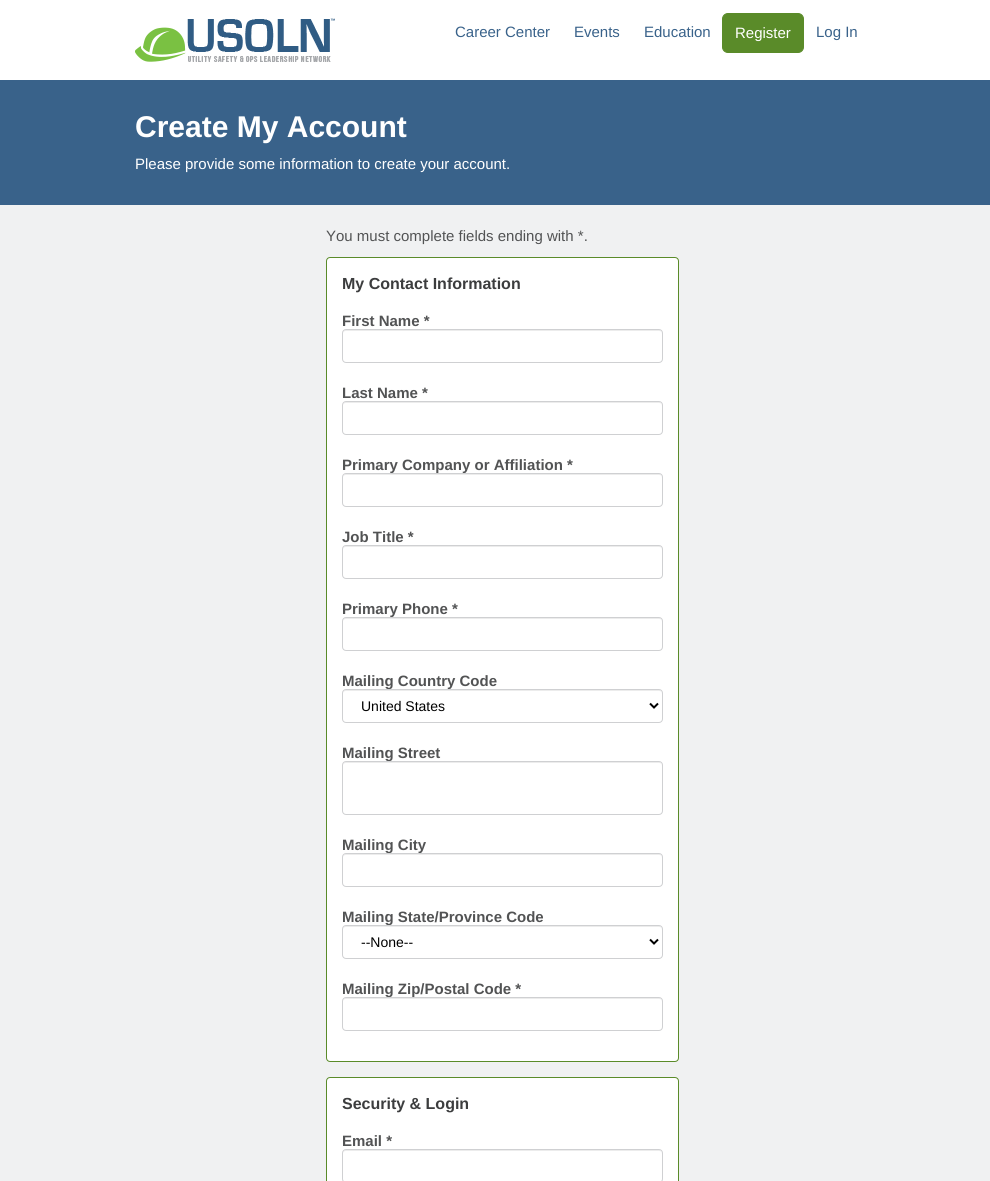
#include <cairo.h>
#include <math.h>
#include <stddef.h>


static void set_color(cairo_t *cr, unsigned color) {
    cairo_set_source_rgb(cr, (color >> 16) / 255.0, (color >> 8 & 255) / 255.0, (color & 255) / 255.0);
}

static void draw_text(cairo_t *cr, double x, double y, const char *s, const char *family, double size, int italic, int bold, unsigned color) {
    cairo_select_font_face(cr, family, italic ? CAIRO_FONT_SLANT_ITALIC : CAIRO_FONT_SLANT_NORMAL,
        bold ? CAIRO_FONT_WEIGHT_BOLD : CAIRO_FONT_WEIGHT_NORMAL);
    cairo_set_font_size(cr, size);
    set_color(cr, color);
    cairo_move_to(cr, x, y);
    cairo_show_text(cr, s);
}

static void fill_rect(cairo_t *cr, double x, double y, double w, double h, unsigned color) {
    set_color(cr, color);
    cairo_rectangle(cr, x, y, w, h);
    cairo_fill(cr);
}

static void rounded_rect(cairo_t *cr, double x, double y, double w, double h, double r) {
    cairo_new_sub_path(cr);
    cairo_arc(cr, x + w - r, y + h - r, r, 0, M_PI / 2);
    cairo_arc(cr, x + r, y + h - r, r, M_PI / 2, M_PI);
    cairo_arc(cr, x + r, y + r, r, M_PI, 1.5 * M_PI);
    cairo_arc(cr, x + w - r, y + r, r, 1.5 * M_PI, 2 * M_PI);
    cairo_close_path(cr);
}

static void draw_image(cairo_t *cr, const char *path, double x, double y, double w, double h) {
    cairo_surface_t *image = cairo_image_surface_create_from_png(path);
    cairo_save(cr);
    cairo_set_source_surface(cr, image, x, y);
    cairo_rectangle(cr, x, y, w, h);
    cairo_fill(cr);
    cairo_restore(cr);
    cairo_surface_destroy(image);
}

int main(void) {
    cairo_surface_t *surface = cairo_image_surface_create(CAIRO_FORMAT_RGB24, 990, 1181);
    cairo_t *cr = cairo_create(surface);
    cairo_font_options_t *options = cairo_font_options_create();
    cairo_font_options_set_hint_metrics(options, CAIRO_HINT_METRICS_OFF);
    cairo_font_options_set_hint_style(options, CAIRO_HINT_STYLE_NONE);
    cairo_set_font_options(cr, options);
    cairo_set_miter_limit(cr, 4);
    set_color(cr, 0xF0F1F2);
    cairo_paint(cr);
    fill_rect(cr, 0, 0, 990, 80, 0xFFFFFF);
    draw_image(cr, "assets/img1.png", 135, 18, 200, 44);
    draw_text(cr, 455, 37, "Career Center", "Liberation Sans", 15, 0, 0, 0x39628A);
    draw_text(cr, 574, 37, "Events", "Liberation Sans", 15, 0, 0, 0x39628A);
    draw_text(cr, 644, 37, "Education", "Liberation Sans", 15, 0, 0, 0x39628A);
    set_color(cr, 0x5A8B29);
    rounded_rect(cr, 722.5, 13.5, 81, 39, 5.5);
    cairo_fill_preserve(cr);
    cairo_set_line_width(cr, 1);
    cairo_stroke(cr);
    draw_text(cr, 735, 38, "Register", "Liberation Sans", 15, 0, 0, 0xFFFFFF);
    draw_text(cr, 816, 37, "Log In", "Liberation Sans", 15, 0, 0, 0x39628A);
    fill_rect(cr, 0, 80, 990, 125, 0x39628A);
    draw_text(cr, 135, 137, "Create My Account", "Liberation Sans", 30, 0, 1, 0xFFFFFF);
    draw_text(cr, 135, 169, "Please provide some information to create your account.", "Liberation Sans", 15, 0, 0, 0xFFFFFF);
    draw_text(cr, 326, 241, "You must complete fields ending with *.", "Liberation Sans", 15, 0, 0, 0x525354);
    set_color(cr, 0xFFFFFF);
    rounded_rect(cr, 326.5, 257.5, 352, 804, 3.5);
    cairo_fill_preserve(cr);
    set_color(cr, 0x5A8B29);
    cairo_stroke(cr);
    draw_text(cr, 342, 289, "My Contact Information", "Liberation Sans", 16, 0, 1, 0x3C3D3E);
    draw_text(cr, 342, 326, "First Name *", "Liberation Sans", 15, 0, 1, 0x525354);
    set_color(cr, 0xECECEC);
    cairo_new_path(cr);
    cairo_move_to(cr, 346, 331);
    cairo_line_to(cr, 659, 331);
    cairo_curve_to(cr, 661, 331, 662, 332, 662, 334);
    cairo_line_to(cr, 661, 331);
    cairo_line_to(cr, 660, 330);
    cairo_line_to(cr, 346, 330);
    cairo_curve_to(cr, 344, 330, 343, 332, 343, 334);
    cairo_curve_to(cr, 343, 332, 344, 331, 346, 331);
    cairo_close_path(cr);
    cairo_fill(cr);
    rounded_rect(cr, 342.5, 329.5, 320, 33, 3.5);
    set_color(cr, 0xCFD0D2);
    cairo_stroke(cr);
    draw_text(cr, 342, 398, "Last Name *", "Liberation Sans", 15, 0, 1, 0x525354);
    set_color(cr, 0xECECEC);
    cairo_new_path(cr);
    cairo_move_to(cr, 346, 403);
    cairo_line_to(cr, 659, 403);
    cairo_curve_to(cr, 661, 403, 662, 404, 662, 406);
    cairo_line_to(cr, 661, 403);
    cairo_line_to(cr, 660, 402);
    cairo_line_to(cr, 346, 402);
    cairo_curve_to(cr, 344, 402, 343, 404, 343, 406);
    cairo_curve_to(cr, 343, 404, 344, 403, 346, 403);
    cairo_close_path(cr);
    cairo_fill(cr);
    rounded_rect(cr, 342.5, 401.5, 320, 33, 3.5);
    set_color(cr, 0xCFD0D2);
    cairo_stroke(cr);
    draw_text(cr, 342, 470, "Primary Company or Affiliation *", "Liberation Sans", 15, 0, 1, 0x525354);
    set_color(cr, 0xFFFFFF);
    rounded_rect(cr, 342, 473, 321, 34, 4);
    cairo_fill(cr);
    set_color(cr, 0xECECEC);
    cairo_new_path(cr);
    cairo_move_to(cr, 346, 475);
    cairo_line_to(cr, 659, 475);
    cairo_curve_to(cr, 661, 475, 662, 476, 662, 478);
    cairo_line_to(cr, 661, 475);
    cairo_line_to(cr, 660, 474);
    cairo_line_to(cr, 346, 474);
    cairo_curve_to(cr, 344, 474, 343, 476, 343, 478);
    cairo_curve_to(cr, 343, 476, 344, 475, 346, 475);
    cairo_close_path(cr);
    cairo_fill(cr);
    rounded_rect(cr, 342.5, 473.5, 320, 33, 3.5);
    set_color(cr, 0xCFD0D2);
    cairo_stroke(cr);
    draw_text(cr, 342, 542, "Job Title *", "Liberation Sans", 15, 0, 1, 0x525354);
    set_color(cr, 0xECECEC);
    cairo_new_path(cr);
    cairo_move_to(cr, 346, 547);
    cairo_line_to(cr, 659, 547);
    cairo_curve_to(cr, 661, 547, 662, 548, 662, 550);
    cairo_line_to(cr, 661, 547);
    cairo_line_to(cr, 660, 546);
    cairo_line_to(cr, 346, 546);
    cairo_curve_to(cr, 344, 546, 343, 548, 343, 550);
    cairo_curve_to(cr, 343, 548, 344, 547, 346, 547);
    cairo_close_path(cr);
    cairo_fill(cr);
    rounded_rect(cr, 342.5, 545.5, 320, 33, 3.5);
    set_color(cr, 0xCFD0D2);
    cairo_stroke(cr);
    draw_text(cr, 342, 614, "Primary Phone *", "Liberation Sans", 15, 0, 1, 0x525354);
    set_color(cr, 0xFFFFFF);
    rounded_rect(cr, 342, 617, 321, 34, 4);
    cairo_fill(cr);
    set_color(cr, 0xECECEC);
    cairo_new_path(cr);
    cairo_move_to(cr, 346, 619);
    cairo_line_to(cr, 659, 619);
    cairo_curve_to(cr, 661, 619, 662, 620, 662, 622);
    cairo_line_to(cr, 661, 619);
    cairo_line_to(cr, 660, 618);
    cairo_line_to(cr, 346, 618);
    cairo_curve_to(cr, 344, 618, 343, 620, 343, 622);
    cairo_curve_to(cr, 343, 620, 344, 619, 346, 619);
    cairo_close_path(cr);
    cairo_fill(cr);
    rounded_rect(cr, 342.5, 617.5, 320, 33, 3.5);
    set_color(cr, 0xCFD0D2);
    cairo_stroke(cr);
    draw_text(cr, 342, 686, "Mailing Country Code", "Liberation Sans", 15, 0, 1, 0x525354);
    set_color(cr, 0xFFFFFF);
    rounded_rect(cr, 342, 689, 321, 34, 4);
    cairo_fill(cr);
    set_color(cr, 0xECECEC);
    cairo_new_path(cr);
    cairo_move_to(cr, 346, 691);
    cairo_line_to(cr, 659, 691);
    cairo_curve_to(cr, 661, 691, 662, 692, 662, 694);
    cairo_line_to(cr, 661, 691);
    cairo_line_to(cr, 660, 690);
    cairo_line_to(cr, 346, 690);
    cairo_curve_to(cr, 344, 690, 343, 692, 343, 694);
    cairo_curve_to(cr, 343, 692, 344, 691, 346, 691);
    cairo_close_path(cr);
    cairo_fill(cr);
    rounded_rect(cr, 342.5, 689.5, 320, 33, 3.5);
    set_color(cr, 0xCFD0D2);
    cairo_stroke(cr);
    cairo_new_path(cr);
    cairo_move_to(cr, 650, 703.5);
    cairo_line_to(cr, 654, 707.5);
    cairo_line_to(cr, 658, 703.5);
    set_color(cr, 0x000000);
    cairo_set_line_width(cr, 2);
    cairo_stroke(cr);
    draw_text(cr, 361, 711, "United States", "Liberation Sans", 14, 0, 0, 0x000000);
    draw_text(cr, 342, 758, "Mailing Street", "Liberation Sans", 15, 0, 1, 0x525354);
    set_color(cr, 0xFFFFFF);
    rounded_rect(cr, 342, 761, 321, 54, 4);
    cairo_fill(cr);
    set_color(cr, 0xECECEC);
    cairo_new_path(cr);
    cairo_move_to(cr, 346, 763);
    cairo_line_to(cr, 659, 763);
    cairo_curve_to(cr, 661, 763, 662, 764, 662, 766);
    cairo_line_to(cr, 661, 763);
    cairo_line_to(cr, 660, 762);
    cairo_line_to(cr, 346, 762);
    cairo_curve_to(cr, 344, 762, 343, 764, 343, 766);
    cairo_curve_to(cr, 343, 764, 344, 763, 346, 763);
    cairo_close_path(cr);
    cairo_fill(cr);
    rounded_rect(cr, 342.5, 761.5, 320, 53, 3.5);
    set_color(cr, 0xCFD0D2);
    cairo_set_line_width(cr, 1);
    cairo_stroke(cr);
    draw_text(cr, 342, 850, "Mailing City", "Liberation Sans", 15, 0, 1, 0x525354);
    set_color(cr, 0xFFFFFF);
    rounded_rect(cr, 342, 853, 321, 34, 4);
    cairo_fill(cr);
    set_color(cr, 0xECECEC);
    cairo_new_path(cr);
    cairo_move_to(cr, 346, 855);
    cairo_line_to(cr, 659, 855);
    cairo_curve_to(cr, 661, 855, 662, 856, 662, 858);
    cairo_line_to(cr, 661, 855);
    cairo_line_to(cr, 660, 854);
    cairo_line_to(cr, 346, 854);
    cairo_curve_to(cr, 344, 854, 343, 856, 343, 858);
    cairo_curve_to(cr, 343, 856, 344, 855, 346, 855);
    cairo_close_path(cr);
    cairo_fill(cr);
    rounded_rect(cr, 342.5, 853.5, 320, 33, 3.5);
    set_color(cr, 0xCFD0D2);
    cairo_stroke(cr);
    draw_text(cr, 342, 922, "Mailing State/Province Code", "Liberation Sans", 15, 0, 1, 0x525354);
    set_color(cr, 0xFFFFFF);
    rounded_rect(cr, 342, 925, 321, 34, 4);
    cairo_fill(cr);
    set_color(cr, 0xECECEC);
    cairo_new_path(cr);
    cairo_move_to(cr, 346, 927);
    cairo_line_to(cr, 659, 927);
    cairo_curve_to(cr, 661, 927, 662, 928, 662, 930);
    cairo_line_to(cr, 661, 927);
    cairo_line_to(cr, 660, 926);
    cairo_line_to(cr, 346, 926);
    cairo_curve_to(cr, 344, 926, 343, 928, 343, 930);
    cairo_curve_to(cr, 343, 928, 344, 927, 346, 927);
    cairo_close_path(cr);
    cairo_fill(cr);
    rounded_rect(cr, 342.5, 925.5, 320, 33, 3.5);
    set_color(cr, 0xCFD0D2);
    cairo_stroke(cr);
    cairo_new_path(cr);
    cairo_move_to(cr, 650, 939.5);
    cairo_line_to(cr, 654, 943.5);
    cairo_line_to(cr, 658, 939.5);
    set_color(cr, 0x000000);
    cairo_set_line_width(cr, 2);
    cairo_stroke(cr);
    draw_text(cr, 361, 947, "--None--", "Liberation Sans", 14, 0, 0, 0x000000);
    draw_text(cr, 342, 994, "Mailing Zip/Postal Code *", "Liberation Sans", 15, 0, 1, 0x525354);
    set_color(cr, 0xFFFFFF);
    rounded_rect(cr, 342, 997, 321, 34, 4);
    cairo_fill(cr);
    set_color(cr, 0xECECEC);
    cairo_new_path(cr);
    cairo_move_to(cr, 346, 999);
    cairo_line_to(cr, 659, 999);
    cairo_curve_to(cr, 661, 999, 662, 1000, 662, 1002);
    cairo_line_to(cr, 661, 999);
    cairo_line_to(cr, 660, 998);
    cairo_line_to(cr, 346, 998);
    cairo_curve_to(cr, 344, 998, 343, 1000, 343, 1002);
    cairo_curve_to(cr, 343, 1000, 344, 999, 346, 999);
    cairo_close_path(cr);
    cairo_fill(cr);
    rounded_rect(cr, 342.5, 997.5, 320, 33, 3.5);
    set_color(cr, 0xCFD0D2);
    cairo_set_line_width(cr, 1);
    cairo_stroke(cr);
    set_color(cr, 0xFFFFFF);
    rounded_rect(cr, 326.5, 1077.5, 352, 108, 3.5);
    cairo_fill_preserve(cr);
    set_color(cr, 0x5A8B29);
    cairo_stroke(cr);
    draw_text(cr, 342, 1109, "Security & Login", "Liberation Sans", 16, 0, 1, 0x3C3D3E);
    draw_text(cr, 342, 1146, "Email *", "Liberation Sans", 15, 0, 1, 0x525354);
    set_color(cr, 0xECECEC);
    cairo_new_path(cr);
    cairo_move_to(cr, 346, 1151);
    cairo_line_to(cr, 659, 1151);
    cairo_curve_to(cr, 661, 1151, 662, 1152, 662, 1154);
    cairo_line_to(cr, 661, 1151);
    cairo_line_to(cr, 660, 1150);
    cairo_line_to(cr, 346, 1150);
    cairo_curve_to(cr, 344, 1150, 343, 1152, 343, 1154);
    cairo_curve_to(cr, 343, 1152, 344, 1151, 346, 1151);
    cairo_close_path(cr);
    cairo_fill(cr);
    rounded_rect(cr, 342.5, 1149.5, 320, 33, 3.5);
    set_color(cr, 0xCFD0D2);
    cairo_stroke(cr);
    cairo_surface_write_to_png(surface, "output.png");
    cairo_font_options_destroy(options);
    cairo_destroy(cr);
    cairo_surface_destroy(surface);
    return 0;
}
